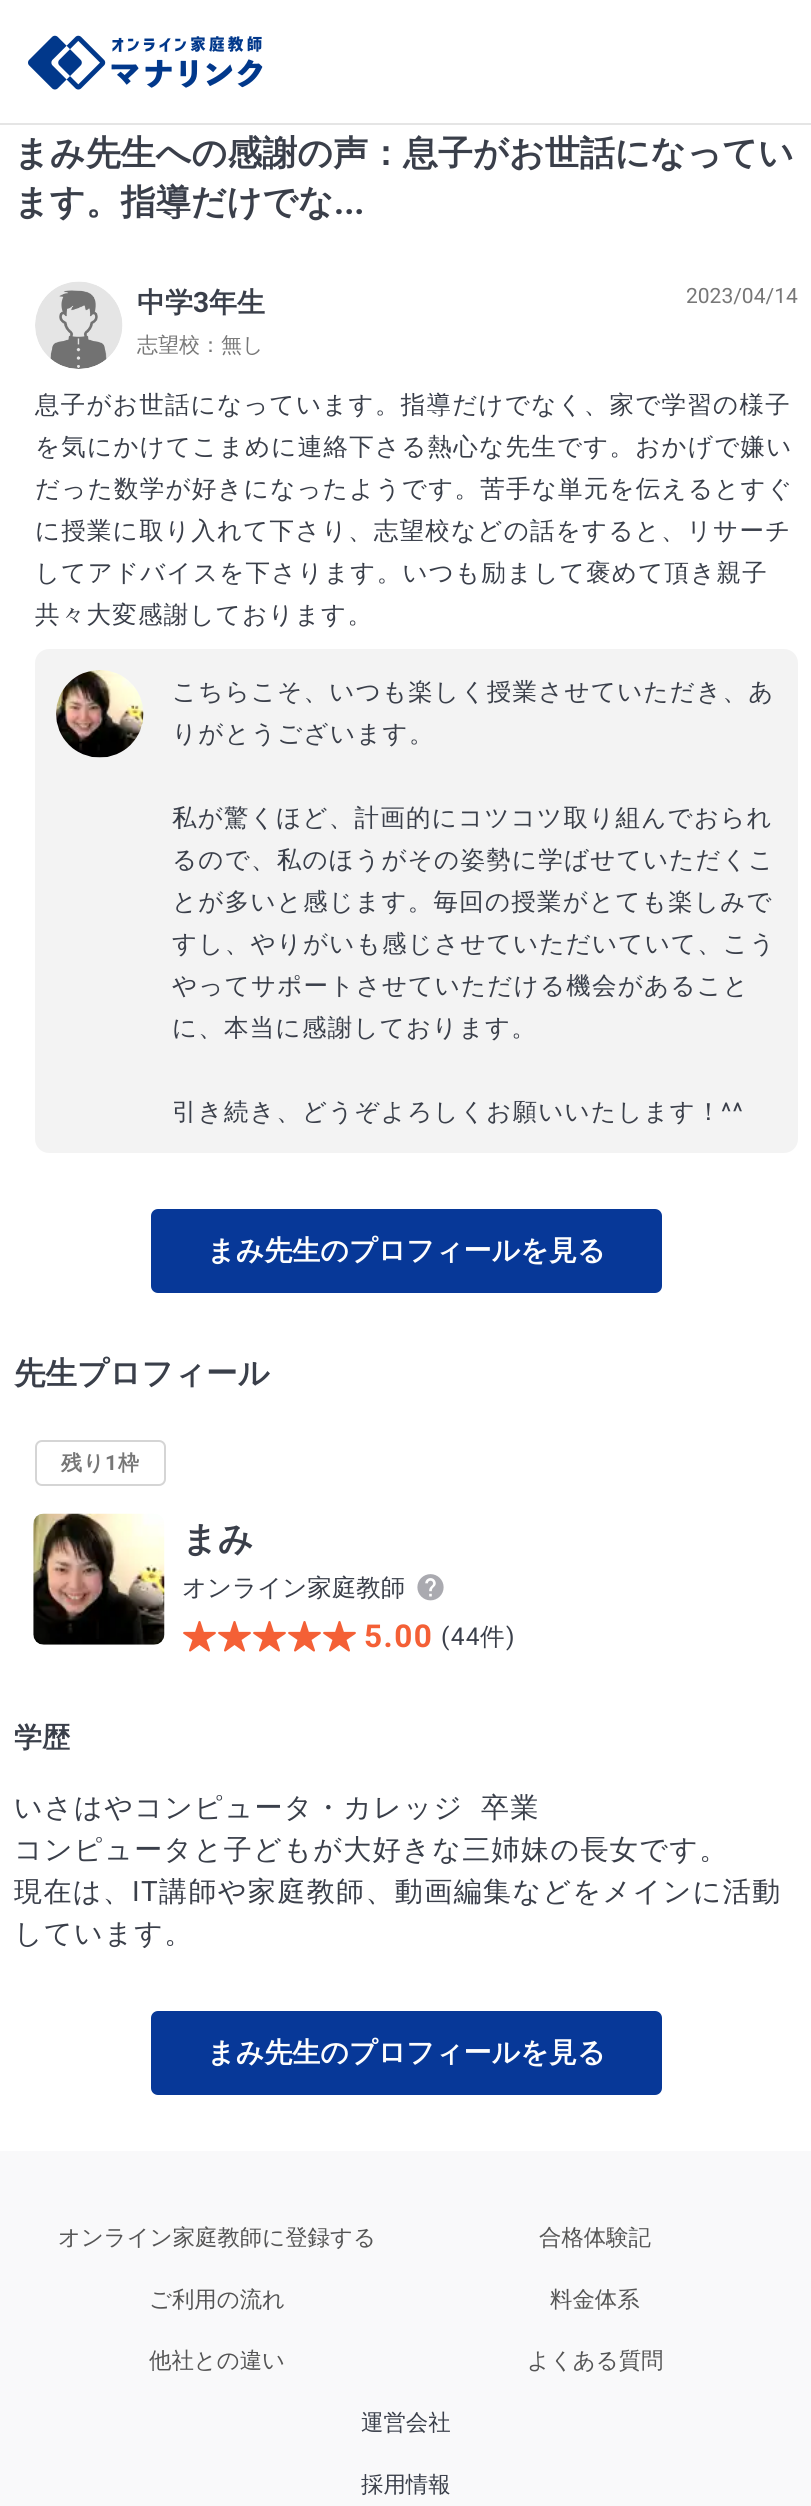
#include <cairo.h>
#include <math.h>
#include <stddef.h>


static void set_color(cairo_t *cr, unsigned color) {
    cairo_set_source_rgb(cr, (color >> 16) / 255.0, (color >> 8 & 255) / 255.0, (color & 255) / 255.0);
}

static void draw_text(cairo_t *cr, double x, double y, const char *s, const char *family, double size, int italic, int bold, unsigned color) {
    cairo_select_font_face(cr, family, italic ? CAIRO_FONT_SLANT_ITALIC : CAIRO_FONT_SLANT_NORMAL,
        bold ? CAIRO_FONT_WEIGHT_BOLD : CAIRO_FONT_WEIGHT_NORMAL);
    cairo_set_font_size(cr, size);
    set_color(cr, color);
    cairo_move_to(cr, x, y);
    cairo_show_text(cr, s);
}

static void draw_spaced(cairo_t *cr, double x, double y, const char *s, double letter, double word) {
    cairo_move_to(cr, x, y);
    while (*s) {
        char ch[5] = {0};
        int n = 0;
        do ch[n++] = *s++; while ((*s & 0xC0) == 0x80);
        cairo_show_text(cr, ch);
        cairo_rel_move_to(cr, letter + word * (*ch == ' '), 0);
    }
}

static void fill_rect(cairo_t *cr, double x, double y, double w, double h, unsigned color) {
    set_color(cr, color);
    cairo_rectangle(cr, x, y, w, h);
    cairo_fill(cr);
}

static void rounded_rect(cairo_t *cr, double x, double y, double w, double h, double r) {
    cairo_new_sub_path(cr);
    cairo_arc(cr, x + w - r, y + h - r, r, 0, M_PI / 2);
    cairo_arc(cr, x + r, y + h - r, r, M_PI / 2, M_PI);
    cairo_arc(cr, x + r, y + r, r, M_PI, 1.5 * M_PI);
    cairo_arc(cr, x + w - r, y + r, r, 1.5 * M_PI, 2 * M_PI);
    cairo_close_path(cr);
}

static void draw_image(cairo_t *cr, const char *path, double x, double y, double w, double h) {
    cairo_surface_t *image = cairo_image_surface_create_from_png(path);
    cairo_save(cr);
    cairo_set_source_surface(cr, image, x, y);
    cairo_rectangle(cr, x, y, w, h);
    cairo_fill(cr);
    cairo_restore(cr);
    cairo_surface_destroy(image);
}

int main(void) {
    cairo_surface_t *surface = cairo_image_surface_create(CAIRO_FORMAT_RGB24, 811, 2506);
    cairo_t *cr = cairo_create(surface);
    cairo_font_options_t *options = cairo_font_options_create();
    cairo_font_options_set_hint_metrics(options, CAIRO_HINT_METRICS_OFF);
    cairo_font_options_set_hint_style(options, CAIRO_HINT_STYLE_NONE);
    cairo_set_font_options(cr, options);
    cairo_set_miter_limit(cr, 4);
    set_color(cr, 0xFFFFFF);
    cairo_paint(cr);
    fill_rect(cr, 0, 123, 811, 2, 0xE5E5E5);
    draw_image(cr, "assets/img1.png", 28, 35, 235, 55);
    draw_text(cr, 14, 165, "まみ先生への感謝の声：息子がお世話になってい", "WenQuanYi Zen Hei", 35, 0, 1, 0x3A3F4A);
    draw_text(cr, 14, 214, "ます。指導だけでな", "WenQuanYi Zen Hei", 35, 0, 1, 0x3A3F4A);
    draw_text(cr, 334, 214, "...", "Roboto", 35, 0, 1, 0x3A3F4A);
    draw_image(cr, "assets/img2.png", 35, 281, 88, 88);
    draw_text(cr, 137, 312, "中学", "WenQuanYi Zen Hei", 28, 0, 1, 0x3A3F4A);
    draw_text(cr, 193, 312, "3", "Roboto", 28, 0, 1, 0x3A3F4A);
    draw_text(cr, 209, 312, "年生", "WenQuanYi Zen Hei", 28, 0, 1, 0x3A3F4A);
    draw_text(cr, 137, 352, "志望校：無し", "WenQuanYi Zen Hei Medium", 21, 0, 0, 0x777777);
    draw_text(cr, 686, 303, "2023/04/14", "Roboto", 21, 0, 0, 0x777777);
    cairo_select_font_face(cr, "WenQuanYi Zen Hei Medium", CAIRO_FONT_SLANT_NORMAL, CAIRO_FONT_WEIGHT_NORMAL);
    cairo_set_font_size(cr, 24.5);
    set_color(cr, 0x3A3F4A);
    draw_spaced(cr, 35, 413, "息子がお世話になっています。指導だけでなく、家で学習の様子", 1.25, 0);
    draw_spaced(cr, 35, 455, "を気にかけてこまめに連絡下さる熱心な先生です。おかげで嫌い", 1.25, 0);
    draw_spaced(cr, 35, 497, "だった数学が好きになったようです。苦手な単元を伝えるとすぐ", 1.25, 0);
    draw_spaced(cr, 35, 539, "に授業に取り入れて下さり、志望校などの話をすると、リサーチ", 1.25, 0);
    draw_spaced(cr, 35, 581, "してアドバイスを下さります。いつも励まして褒めて頂き親子", 1.25, 0);
    draw_spaced(cr, 35, 623, "共々大変感謝しております。", 1.25, 0);
    set_color(cr, 0xF3F3F3);
    rounded_rect(cr, 35, 649, 763, 504, 14);
    cairo_fill(cr);
    draw_image(cr, "assets/img3.png", 56, 670, 88, 88);
    set_color(cr, 0x3A3F4A);
    draw_spaced(cr, 172, 700, "こちらこそ、いつも楽しく授業させていただき、あ", 1.25, 0);
    draw_spaced(cr, 172, 742, "りがとうございます。", 1.25, 0);
    draw_spaced(cr, 172, 826, "私が驚くほど、計画的にコツコツ取り組んでおられ", 1.25, 0);
    draw_spaced(cr, 172, 868, "るので、私のほうがその姿勢に学ばせていただくこ", 1.25, 0);
    draw_spaced(cr, 172, 910, "とが多いと感じます。毎回の授業がとても楽しみで", 1.25, 0);
    draw_spaced(cr, 172, 952, "すし、やりがいも感じさせていただいていて、こう", 1.25, 0);
    draw_spaced(cr, 172, 994, "やってサポートさせていただける機会があること", 1.25, 0);
    draw_spaced(cr, 172, 1036, "に、本当に感謝しております。", 1.25, 0);
    draw_spaced(cr, 172, 1120, "引き続き、どうぞよろしくお願いいたします！", 1.25, 0);
    cairo_select_font_face(cr, "Roboto", CAIRO_FONT_SLANT_NORMAL, CAIRO_FONT_WEIGHT_NORMAL);
    draw_spaced(cr, 721, 1120, "^^", 1.25, 0);
    set_color(cr, 0x073898);
    rounded_rect(cr, 151, 1209, 511, 84, 7);
    cairo_fill(cr);
    draw_text(cr, 207, 1260, "まみ先生のプロフィールを見る", "WenQuanYi Zen Hei", 28, 0, 1, 0xFDFDFD);
    draw_text(cr, 14, 1384, "先生プロフィール", "WenQuanYi Zen Hei", 31.5, 0, 1, 0x3A3F4A);
    rounded_rect(cr, 36, 1441, 129, 44, 6);
    set_color(cr, 0xD5D5D5);
    cairo_stroke(cr);
    cairo_set_font_size(cr, 21);
    set_color(cr, 0x777777);
    draw_spaced(cr, 61, 1470, "残り", 1, 0);
    cairo_select_font_face(cr, "Roboto", CAIRO_FONT_SLANT_NORMAL, CAIRO_FONT_WEIGHT_BOLD);
    draw_spaced(cr, 105, 1470, "1", 1, 0);
    cairo_select_font_face(cr, "WenQuanYi Zen Hei", CAIRO_FONT_SLANT_NORMAL, CAIRO_FONT_WEIGHT_BOLD);
    draw_spaced(cr, 118, 1470, "枠", 1, 0);
    draw_image(cr, "assets/img4.png", 33, 1513, 132, 132);
    draw_text(cr, 182, 1551, "まみ", "WenQuanYi Zen Hei", 35, 0, 1, 0x3A3F4A);
    draw_text(cr, 182, 1596, "オンライン家庭教師", "WenQuanYi Zen Hei Medium", 24.5, 0, 0, 0x3A3F4A);
    draw_image(cr, "assets/img5.png", 417, 1574, 27, 27);
    draw_image(cr, "assets/img6.png", 183, 1621, 33, 31);
    draw_image(cr, "assets/img6.png", 218, 1621, 33, 31);
    draw_image(cr, "assets/img6.png", 253, 1621, 33, 31);
    draw_image(cr, "assets/img6.png", 288, 1621, 33, 31);
    draw_image(cr, "assets/img6.png", 323, 1621, 33, 31);
    cairo_select_font_face(cr, "Roboto", CAIRO_FONT_SLANT_NORMAL, CAIRO_FONT_WEIGHT_BOLD);
    cairo_set_font_size(cr, 31.5);
    set_color(cr, 0xF46036);
    draw_spaced(cr, 364, 1647, "5.00", 1.5, 0);
    cairo_select_font_face(cr, "Roboto", CAIRO_FONT_SLANT_NORMAL, CAIRO_FONT_WEIGHT_NORMAL);
    cairo_set_font_size(cr, 24.5);
    set_color(cr, 0x3A3F4A);
    draw_spaced(cr, 441, 1645, "(44", 1.25, 0);
    cairo_select_font_face(cr, "WenQuanYi Zen Hei Medium", CAIRO_FONT_SLANT_NORMAL, CAIRO_FONT_WEIGHT_NORMAL);
    draw_spaced(cr, 480, 1645, "件", 1.25, 0);
    cairo_select_font_face(cr, "Roboto", CAIRO_FONT_SLANT_NORMAL, CAIRO_FONT_WEIGHT_NORMAL);
    draw_spaced(cr, 506, 1645, ")", 1.25, 0);
    draw_text(cr, 14, 1747, "学歴", "WenQuanYi Zen Hei", 28, 0, 1, 0x3A3F4A);
    cairo_select_font_face(cr, "WenQuanYi Zen Hei Medium", CAIRO_FONT_SLANT_NORMAL, CAIRO_FONT_WEIGHT_NORMAL);
    draw_spaced(cr, 14, 1817, "いさはやコンピュータ・カレッジ  卒業", 1.4, -1);
    draw_spaced(cr, 14, 1859, "コンピュータと子どもが大好きな三姉妹の長女です。", 1.4, 0);
    draw_spaced(cr, 14, 1901, "現在は、", 1.4, 0);
    cairo_select_font_face(cr, "Roboto", CAIRO_FONT_SLANT_NORMAL, CAIRO_FONT_WEIGHT_NORMAL);
    draw_spaced(cr, 132, 1901, "IT", 1.4, 0);
    cairo_select_font_face(cr, "WenQuanYi Zen Hei Medium", CAIRO_FONT_SLANT_NORMAL, CAIRO_FONT_WEIGHT_NORMAL);
    draw_spaced(cr, 159, 1901, "講師や家庭教師、動画編集などをメインに活動", 1.4, 0);
    draw_spaced(cr, 14, 1943, "しています。", 1.4, 0);
    set_color(cr, 0x073898);
    rounded_rect(cr, 151, 2011, 511, 84, 7);
    cairo_fill(cr);
    draw_text(cr, 207, 2062, "まみ先生のプロフィールを見る", "WenQuanYi Zen Hei", 28, 0, 1, 0xFDFDFD);
    fill_rect(cr, 0, 2151, 811, 355, 0xF9F9FA);
    draw_text(cr, 58, 2245, "オンライン家庭教師に登録する", "WenQuanYi Zen Hei Medium", 22.4, 0, 0, 0x555555);
    draw_text(cr, 539, 2245, "合格体験記", "WenQuanYi Zen Hei Medium", 22.4, 0, 0, 0x555555);
    draw_text(cr, 149, 2307, "ご利用の流れ", "WenQuanYi Zen Hei Medium", 22.4, 0, 0, 0x555555);
    draw_text(cr, 550, 2307, "料金体系", "WenQuanYi Zen Hei Medium", 22.4, 0, 0, 0x555555);
    draw_text(cr, 149, 2368, "他社との違い", "WenQuanYi Zen Hei Medium", 22.4, 0, 0, 0x555555);
    draw_text(cr, 527, 2368, "よくある質問", "WenQuanYi Zen Hei Medium", 22.4, 0, 0, 0x555555);
    draw_text(cr, 361, 2430, "運営会社", "WenQuanYi Zen Hei Medium", 22.4, 0, 0, 0x3A3F4A);
    draw_text(cr, 361, 2492, "採用情報", "WenQuanYi Zen Hei Medium", 22.4, 0, 0, 0x3A3F4A);
    cairo_surface_write_to_png(surface, "output.png");
    cairo_font_options_destroy(options);
    cairo_destroy(cr);
    cairo_surface_destroy(surface);
    return 0;
}
